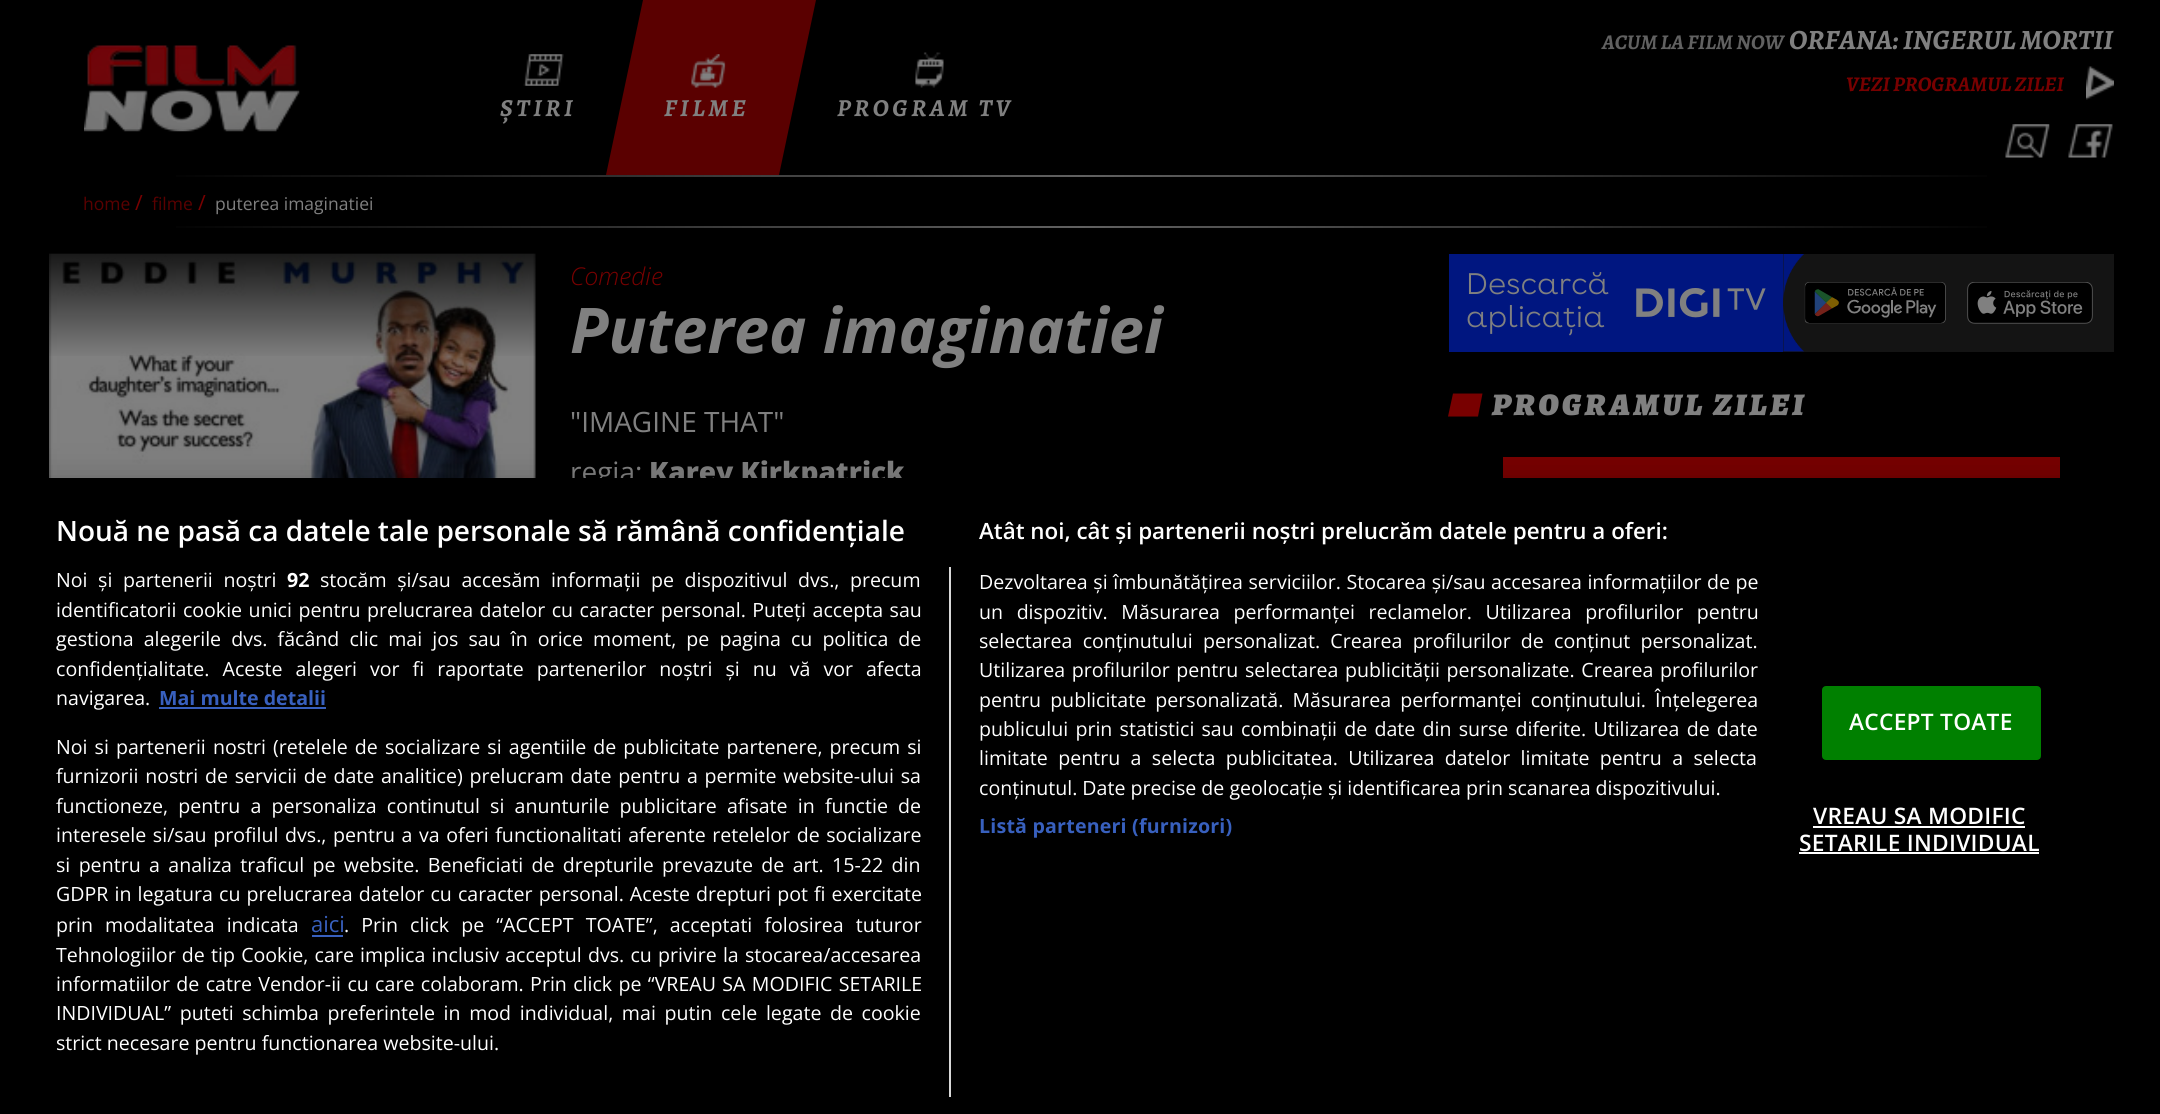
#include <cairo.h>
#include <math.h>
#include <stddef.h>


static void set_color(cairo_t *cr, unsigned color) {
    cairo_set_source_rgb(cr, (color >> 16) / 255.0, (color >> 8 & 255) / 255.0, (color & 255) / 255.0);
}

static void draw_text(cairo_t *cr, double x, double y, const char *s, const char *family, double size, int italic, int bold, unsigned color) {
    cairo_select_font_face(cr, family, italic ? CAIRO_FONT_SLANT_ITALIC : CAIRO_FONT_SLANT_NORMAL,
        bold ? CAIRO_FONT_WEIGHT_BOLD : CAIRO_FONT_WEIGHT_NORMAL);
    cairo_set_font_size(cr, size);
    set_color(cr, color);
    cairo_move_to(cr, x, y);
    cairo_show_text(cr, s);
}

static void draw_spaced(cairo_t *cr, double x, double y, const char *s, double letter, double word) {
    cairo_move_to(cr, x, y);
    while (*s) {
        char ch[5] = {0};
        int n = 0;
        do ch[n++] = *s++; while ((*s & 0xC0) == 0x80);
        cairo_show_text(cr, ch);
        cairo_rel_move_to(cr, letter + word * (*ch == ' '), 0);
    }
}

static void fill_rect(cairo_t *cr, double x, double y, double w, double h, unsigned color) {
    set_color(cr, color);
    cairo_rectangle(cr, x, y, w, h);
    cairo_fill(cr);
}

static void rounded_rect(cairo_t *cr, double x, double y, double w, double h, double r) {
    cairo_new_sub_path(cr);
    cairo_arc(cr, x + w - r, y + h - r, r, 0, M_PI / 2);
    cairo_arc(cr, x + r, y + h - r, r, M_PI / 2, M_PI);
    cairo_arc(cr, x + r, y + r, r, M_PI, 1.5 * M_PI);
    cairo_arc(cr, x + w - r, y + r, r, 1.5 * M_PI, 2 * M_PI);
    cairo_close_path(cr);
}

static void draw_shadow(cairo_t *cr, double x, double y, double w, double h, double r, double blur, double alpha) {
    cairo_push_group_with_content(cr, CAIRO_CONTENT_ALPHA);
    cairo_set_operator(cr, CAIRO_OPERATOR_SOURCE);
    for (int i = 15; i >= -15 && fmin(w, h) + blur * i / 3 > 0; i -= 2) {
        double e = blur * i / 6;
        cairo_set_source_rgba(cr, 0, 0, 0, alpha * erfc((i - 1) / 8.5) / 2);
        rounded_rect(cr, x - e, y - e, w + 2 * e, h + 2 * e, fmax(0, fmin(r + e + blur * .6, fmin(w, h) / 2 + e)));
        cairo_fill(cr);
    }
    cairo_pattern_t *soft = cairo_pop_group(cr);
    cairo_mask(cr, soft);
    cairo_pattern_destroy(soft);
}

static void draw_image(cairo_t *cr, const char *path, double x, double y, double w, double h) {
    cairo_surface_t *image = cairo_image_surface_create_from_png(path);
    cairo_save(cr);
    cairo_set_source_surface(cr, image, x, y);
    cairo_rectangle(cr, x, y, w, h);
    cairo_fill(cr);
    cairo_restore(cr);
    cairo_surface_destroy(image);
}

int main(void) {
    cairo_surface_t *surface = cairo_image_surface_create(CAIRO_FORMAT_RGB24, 2160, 1114);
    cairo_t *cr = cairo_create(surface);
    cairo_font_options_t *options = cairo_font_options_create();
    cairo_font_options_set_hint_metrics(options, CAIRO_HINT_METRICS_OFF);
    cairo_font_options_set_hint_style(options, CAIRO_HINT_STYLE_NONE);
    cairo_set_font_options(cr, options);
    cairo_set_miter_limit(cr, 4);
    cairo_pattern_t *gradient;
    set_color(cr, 0x000000);
    cairo_paint(cr);
    draw_image(cr, "assets/img1.png", 84, 45, 216, 87);
    draw_text(cr, 1602, 49, "ACUM LA FILM NOW", "Alegreya SC", 21, 1, 1, 0x616161);
    draw_text(cr, 1789, 49, "ORFANA: INGERUL MORTII", "Alegreya SC", 28, 1, 1, 0x808080);
    draw_text(cr, 1846, 91, "VEZI PROGRAMUL ZILEI", "Alegreya SC", 21, 1, 1, 0x780000);
    draw_image(cr, "assets/img2.png", 2086, 66, 28, 34);
    draw_image(cr, "assets/img3.png", 523, 54, 41, 32);
    cairo_set_font_size(cr, 24.5);
    set_color(cr, 0x808080);
    draw_spaced(cr, 500, 116, "ȘTIRI", 3.5, 0);
    set_color(cr, 0x5A0000);
    cairo_new_path(cr);
    cairo_move_to(cr, 643, 0);
    cairo_line_to(cr, 816, 0);
    cairo_line_to(cr, 779, 175);
    cairo_line_to(cr, 606, 175);
    cairo_close_path(cr);
    cairo_fill(cr);
    draw_image(cr, "assets/img4.png", 691, 54, 35, 34);
    set_color(cr, 0x808080);
    draw_spaced(cr, 664, 116, "FILME", 3.5, 0);
    draw_image(cr, "assets/img5.png", 915, 52, 29, 36);
    draw_spaced(cr, 837, 116, "PROGRAM TV", 3.5, 0);
    draw_image(cr, "assets/img6.png", 2005, 124, 45, 34);
    draw_image(cr, "assets/img7.png", 2068, 124, 45, 34);
    gradient = cairo_pattern_create_linear(49, 227, 2114, 227);
    cairo_pattern_add_color_stop_rgba(gradient, 0.05, 0, 0, 0, 1);
    cairo_pattern_add_color_stop_rgba(gradient, 0.5, 0.38, 0.38, 0.38, 1);
    cairo_pattern_add_color_stop_rgba(gradient, 0.95, 0, 0, 0, 1);
    cairo_set_source(cr, gradient);
    cairo_pattern_destroy(gradient);
    cairo_rectangle(cr, 176, 226, 1811, 2);
    cairo_fill(cr);
    gradient = cairo_pattern_create_linear(49, 176, 2114, 176);
    cairo_pattern_add_color_stop_rgba(gradient, 0.05, 0, 0, 0, 1);
    cairo_pattern_add_color_stop_rgba(gradient, 0.5, 0.38, 0.38, 0.38, 1);
    cairo_pattern_add_color_stop_rgba(gradient, 0.95, 0, 0, 0, 1);
    cairo_set_source(cr, gradient);
    cairo_pattern_destroy(gradient);
    cairo_rectangle(cr, 176, 175, 1811, 2);
    cairo_fill(cr);
    draw_text(cr, 83, 210, "home", "Open Sans", 17.5, 0, 0, 0x5A0000);
    draw_text(cr, 135, 210, "/", "Open Sans", 21, 0, 0, 0x780000);
    draw_text(cr, 152, 210, "filme", "Open Sans", 17.5, 0, 0, 0x5A0000);
    draw_text(cr, 198, 210, "/", "Open Sans", 21, 0, 0, 0x780000);
    draw_text(cr, 215, 210, "puterea imaginatiei", "Open Sans", 17.5, 0, 0, 0x808080);
    draw_image(cr, "assets/img8.png", 49, 253, 487, 225);
    gradient = cairo_pattern_create_linear(292, 254, 292, 954);
    cairo_pattern_add_color_stop_rgba(gradient, 0, 0, 0, 0, 0.8);
    cairo_pattern_add_color_stop_rgba(gradient, 0.15, 0, 0, 0, 0);
    cairo_pattern_add_color_stop_rgba(gradient, 0.35, 0, 0, 0, 0);
    cairo_pattern_add_color_stop_rgba(gradient, 1, 0, 0, 0, 0.9);
    cairo_set_source(cr, gradient);
    cairo_pattern_destroy(gradient);
    cairo_rectangle(cr, 49, 254, 487, 102);
    cairo_fill(cr);
    draw_text(cr, 570, 285, "Comedie", "Open Sans Light", 24.5, 1, 0, 0x780000);
    draw_text(cr, 570, 353, "Puterea imaginatiei", "Open Sans", 63, 1, 1, 0x808080);
    draw_text(cr, 570, 432, "\"IMAGINE THAT\"", "Open Sans", 28, 0, 0, 0x808080);
    draw_text(cr, 570, 482, "regia:", "Open Sans", 28, 0, 0, 0x808080);
    draw_text(cr, 649, 482, "Karey Kirkpatrick", "Open Sans ExtraBold", 28, 0, 0, 0x808080);
    fill_rect(cr, 1449, 254, 334, 98, 0x001680);
    draw_text(cr, 1466, 294, "Descarcă", "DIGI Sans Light", 29.75, 0, 0, 0x808080);
    fill_rect(cr, 1783, 254, 331, 98, 0x141414);
    draw_image(cr, "assets/img9.png", 1783, 254, 21, 98);
    draw_image(cr, "assets/img10.png", 1804, 282, 142, 42);
    draw_image(cr, "assets/img11.png", 1967, 282, 126, 42);
    draw_text(cr, 1466, 327, "aplicația", "DIGI Sans Light", 29.75, 0, 0, 0x808080);
    draw_image(cr, "assets/img12.png", 1636, 288, 130, 30);
    set_color(cr, 0x780000);
    cairo_new_path(cr);
    cairo_move_to(cr, 1453, 393.5);
    cairo_line_to(cr, 1482.5, 393.5);
    cairo_line_to(cr, 1478, 416.5);
    cairo_line_to(cr, 1448, 416.5);
    cairo_close_path(cr);
    cairo_fill(cr);
    cairo_select_font_face(cr, "Alegreya SC Black", CAIRO_FONT_SLANT_ITALIC, CAIRO_FONT_WEIGHT_NORMAL);
    cairo_set_font_size(cr, 31.5);
    set_color(cr, 0x808080);
    draw_spaced(cr, 1492, 415, "PROGRAMUL ZILEI", 3.5, 0);
    fill_rect(cr, 1503, 457, 557, 21, 0x780000);
    set_color(cr, 0x000000);
    draw_shadow(cr, 0, 478, 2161, 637, 0, 16, 0.2);
    fill_rect(cr, 572, 478, 333, 11, 0x000000);
    draw_text(cr, 56, 541, "Nouă ne pasă ca datele tale personale să rămână confidențiale", "Open Sans SemiBold", 28, 0, 0, 0xFFFFFF);
    draw_text(cr, 979, 539, "Atât noi, cât și partenerii noștri prelucrăm datele pentru a oferi:", "Open Sans SemiBold", 22.4, 0, 0, 0xFFFFFF);
    cairo_select_font_face(cr, "Open Sans", CAIRO_FONT_SLANT_NORMAL, CAIRO_FONT_WEIGHT_NORMAL);
    cairo_set_font_size(cr, 19.6);
    draw_spaced(cr, 979, 589, "Dezvoltarea și îmbunătățirea serviciilor. Stocarea și/sau accesarea informațiilor de pe", 0, 0.5);
    draw_spaced(cr, 979, 619, "un dispozitiv. Măsurarea performanței reclamelor. Utilizarea profilurilor pentru", 0, 8.5);
    draw_spaced(cr, 979, 648, "selectarea conținutului personalizat. Crearea profilurilor de conținut personalizat.", 0, 5.1);
    draw_spaced(cr, 979, 677, "Utilizarea profilurilor pentru selectarea publicității personalizate. Crearea profilurilor", 0, 1.5);
    draw_spaced(cr, 979, 707, "pentru publicitate personalizată. Măsurarea performanței conținutului. Înțelegerea", 0, 4);
    draw_spaced(cr, 979, 736, "publicului prin statistici sau combinații de date din surse diferite. Utilizarea de date", 0, 2.1);
    draw_spaced(cr, 979, 765, "limitate pentru a selecta publicitatea. Utilizarea datelor limitate pentru a selecta", 0, 5.25);
    draw_text(cr, 979, 795, "conținutul. Date precise de geolocație și identificarea prin scanarea dispozitivului.", "Open Sans", 19.6, 0, 0, 0xFFFFFF);
    cairo_select_font_face(cr, "Open Sans", CAIRO_FONT_SLANT_NORMAL, CAIRO_FONT_WEIGHT_BOLD);
    set_color(cr, 0x3860BE);
    draw_spaced(cr, 979, 833, "Listă parteneri (furnizori)", 0.2, 0);
    fill_rect(cr, 949, 567, 2, 530, 0xD8D8D8);
    cairo_select_font_face(cr, "Open Sans", CAIRO_FONT_SLANT_NORMAL, CAIRO_FONT_WEIGHT_NORMAL);
    set_color(cr, 0xFFFFFF);
    draw_spaced(cr, 56, 587, "Noi și partenerii noștri", 0, 5.5);
    draw_text(cr, 287, 587, "92", "Open Sans", 19.6, 0, 1, 0xFFFFFF);
    cairo_select_font_face(cr, "Open Sans", CAIRO_FONT_SLANT_NORMAL, CAIRO_FONT_WEIGHT_NORMAL);
    draw_spaced(cr, 320, 587, "stocăm și/sau accesăm informații pe dispozitivul dvs., precum", 0, 5.5);
    draw_spaced(cr, 56, 617, "identificatorii cookie unici pentru prelucrarea datelor cu caracter personal. Puteți accepta sau", 0, 1.4);
    draw_spaced(cr, 56, 646, "gestiona alegerile dvs. făcând clic mai jos sau în orice moment, pe pagina cu politica de", 0, 5);
    draw_spaced(cr, 56, 676, "confidențialitate. Aceste alegeri vor fi raportate partenerilor noștri și nu vă vor afecta", 0, 7.9);
    draw_text(cr, 56, 705, "navigarea.", "Open Sans", 19.6, 0, 0, 0xFFFFFF);
    draw_text(cr, 159, 705, "Mai multe detalii", "Open Sans", 19.6, 0, 1, 0x3860BE);
    fill_rect(cr, 159, 707, 167, 2, 0x3860BE);
    cairo_select_font_face(cr, "Open Sans", CAIRO_FONT_SLANT_NORMAL, CAIRO_FONT_WEIGHT_NORMAL);
    set_color(cr, 0xFFFFFF);
    draw_spaced(cr, 56, 754, "Noi si partenerii nostri (retelele de socializare si agentiile de publicitate partenere, precum si", 0, 2);
    draw_spaced(cr, 56, 783, "furnizorii nostri de servicii de date analitice) prelucram date pentru a permite website-ului sa", 0, 1.6);
    draw_spaced(cr, 56, 813, "functioneze, pentru a personaliza continutul si anunturile publicitare afisate in functie de", 0, 5.1);
    draw_spaced(cr, 56, 842, "interesele si/sau profilul dvs., pentru a va oferi functionalitati aferente retelelor de socializare", 0, 1.5);
    draw_spaced(cr, 56, 872, "si pentru a analiza traficul pe website. Beneficiati de drepturile prevazute de art. 15-22 din", 0, 3.25);
    draw_spaced(cr, 56, 901, "GDPR in legatura cu prelucrarea datelor cu caracter personal. Aceste drepturi pot fi exercitate", 0, 1);
    draw_spaced(cr, 56, 932, "prin modalitatea indicata", 0, 7);
    draw_text(cr, 311, 932, "aici", "Open Sans", 22, 0, 0, 0x3860BE);
    fill_rect(cr, 312, 935, 31, 2, 0x3860BE);
    cairo_set_font_size(cr, 19.6);
    set_color(cr, 0xFFFFFF);
    draw_spaced(cr, 344, 932, ". Prin click pe “ACCEPT TOATE”, acceptati folosirea tuturor", 0, 7);
    draw_spaced(cr, 56, 962, "Tehnologiilor de tip Cookie, care implica inclusiv acceptul dvs. cu privire la stocarea/accesarea", 0, 1.1);
    draw_spaced(cr, 56, 991, "informatiilor de catre Vendor-ii cu care colaboram. Prin click pe “VREAU SA MODIFIC SETARILE", 0, 1.25);
    draw_spaced(cr, 56, 1020, "INDIVIDUAL” puteti schimba preferintele in mod individual, mai putin cele legate de cookie", 0, 3.5);
    draw_text(cr, 56, 1050, "strict necesare pentru functionarea website-ului.", "Open Sans", 19.6, 0, 0, 0xFFFFFF);
    set_color(cr, 0x008000);
    rounded_rect(cr, 1823, 687, 217, 72, 3);
    cairo_fill_preserve(cr);
    cairo_stroke(cr);
    cairo_select_font_face(cr, "Open Sans SemiBold", CAIRO_FONT_SLANT_NORMAL, CAIRO_FONT_WEIGHT_NORMAL);
    cairo_set_font_size(cr, 22.75);
    set_color(cr, 0xFFFFFF);
    draw_spaced(cr, 1849, 730, "ACCEPT TOATE", 0.25, 0);
    draw_spaced(cr, 1813, 824, "VREAU SA MODIFIC", 0.25, 0);
    fill_rect(cr, 1813, 826, 212, 2, 0xFFFFFF);
    draw_spaced(cr, 1799, 851, "SETARILE INDIVIDUAL", 0.25, 0);
    fill_rect(cr, 1799, 852, 240, 2, 0xFFFFFF);
    cairo_surface_write_to_png(surface, "output.png");
    cairo_font_options_destroy(options);
    cairo_destroy(cr);
    cairo_surface_destroy(surface);
    return 0;
}
